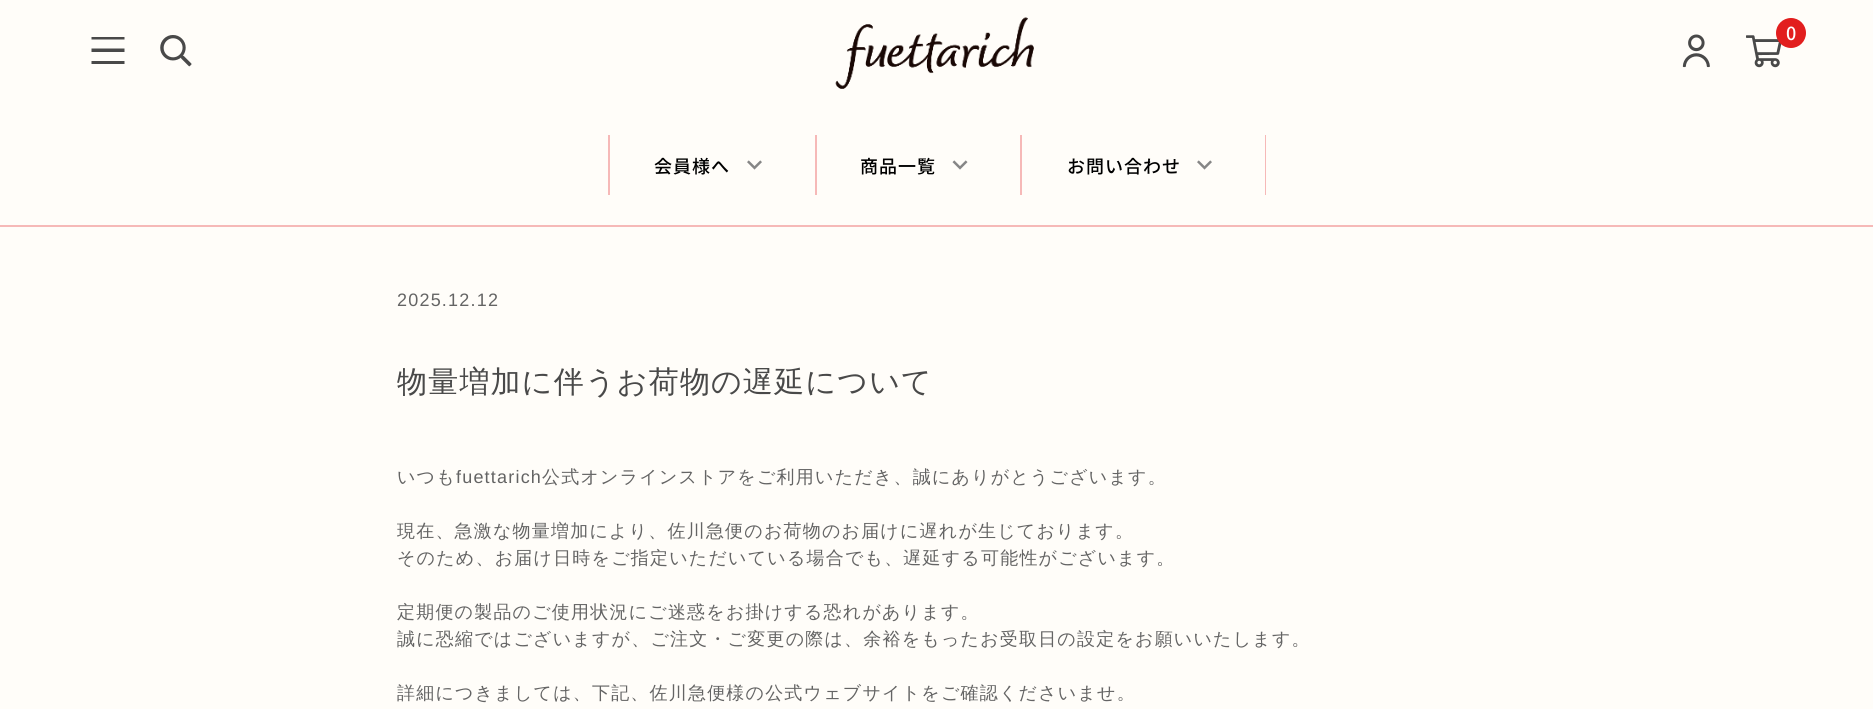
#include <cairo.h>
#include <math.h>
#include <stddef.h>


static void set_color(cairo_t *cr, unsigned color) {
    cairo_set_source_rgb(cr, (color >> 16) / 255.0, (color >> 8 & 255) / 255.0, (color & 255) / 255.0);
}

static void draw_spaced(cairo_t *cr, double x, double y, const char *s, double letter, double word) {
    cairo_move_to(cr, x, y);
    while (*s) {
        char ch[5] = {0};
        int n = 0;
        do ch[n++] = *s++; while ((*s & 0xC0) == 0x80);
        cairo_show_text(cr, ch);
        cairo_rel_move_to(cr, letter + word * (*ch == ' '), 0);
    }
}

static void fill_rect(cairo_t *cr, double x, double y, double w, double h, unsigned color) {
    set_color(cr, color);
    cairo_rectangle(cr, x, y, w, h);
    cairo_fill(cr);
}

static void draw_image(cairo_t *cr, const char *path, double x, double y, double w, double h) {
    cairo_surface_t *image = cairo_image_surface_create_from_png(path);
    cairo_save(cr);
    cairo_set_source_surface(cr, image, x, y);
    cairo_rectangle(cr, x, y, w, h);
    cairo_fill(cr);
    cairo_restore(cr);
    cairo_surface_destroy(image);
}

int main(void) {
    cairo_surface_t *surface = cairo_image_surface_create(CAIRO_FORMAT_RGB24, 1873, 709);
    cairo_t *cr = cairo_create(surface);
    cairo_font_options_t *options = cairo_font_options_create();
    cairo_font_options_set_hint_metrics(options, CAIRO_HINT_METRICS_OFF);
    cairo_font_options_set_hint_style(options, CAIRO_HINT_STYLE_NONE);
    cairo_set_font_options(cr, options);
    cairo_set_miter_limit(cr, 4);
    set_color(cr, 0xFFFDF9);
    cairo_paint(cr);
    fill_rect(cr, 0, 225, 1873, 2, 0xF6B9B8);
    draw_image(cr, "assets/img1.png", 835, 17, 199, 72);
    draw_image(cr, "assets/img2.png", 1682, 34, 28, 34);
    draw_image(cr, "assets/img3.png", 1746, 35, 36, 33);
    set_color(cr, 0xE21E1E);
    cairo_arc(cr, 1791, 33, 15, 0, 2 * M_PI);
    cairo_fill(cr);
    cairo_select_font_face(cr, "Noto Sans JP Thin", CAIRO_FONT_SLANT_NORMAL, CAIRO_FONT_WEIGHT_NORMAL);
    cairo_set_font_size(cr, 18);
    set_color(cr, 0xFFFFFF);
    draw_spaced(cr, 1786, 40, "0", 1.2, 0);
    set_color(cr, 0x494949);
    cairo_new_path(cr);
    cairo_move_to(cr, 91.5, 37);
    cairo_line_to(cr, 124.5, 37);
    cairo_line_to(cr, 124.5, 39.5);
    cairo_line_to(cr, 91.5, 39.5);
    cairo_close_path(cr);
    cairo_move_to(cr, 91.5, 48.5);
    cairo_line_to(cr, 124.5, 48.5);
    cairo_line_to(cr, 124.5, 52);
    cairo_line_to(cr, 91.5, 52);
    cairo_close_path(cr);
    cairo_move_to(cr, 91.5, 61);
    cairo_line_to(cr, 124.5, 61);
    cairo_line_to(cr, 124.5, 64);
    cairo_line_to(cr, 91.5, 64);
    cairo_close_path(cr);
    cairo_fill(cr);
    draw_image(cr, "assets/img4.png", 160, 35, 32, 32);
    fill_rect(cr, 608, 135, 2, 60, 0xF6B9B8);
    set_color(cr, 0x000000);
    draw_spaced(cr, 654, 173, "会員様へ", 1, 0);
    draw_image(cr, "assets/img5.png", 747, 160, 15, 10);
    fill_rect(cr, 815, 135, 2, 60, 0xF6B9B8);
    set_color(cr, 0x000000);
    draw_spaced(cr, 860, 173, "商品一覧", 1, 0);
    draw_image(cr, "assets/img6.png", 952, 160, 16, 10);
    fill_rect(cr, 1265, 135, 1, 60, 0xF6B9B8);
    fill_rect(cr, 1020, 135, 2, 60, 0xF6B9B8);
    set_color(cr, 0x000000);
    draw_spaced(cr, 1067, 173, "お問い合わせ", 1, 0);
    draw_image(cr, "assets/img5.png", 1197, 160, 15, 10);
    cairo_select_font_face(cr, "Liberation Sans", CAIRO_FONT_SLANT_NORMAL, CAIRO_FONT_WEIGHT_NORMAL);
    set_color(cr, 0x646464);
    draw_spaced(cr, 397, 306, "2025.12.12", 1.2, 0);
    cairo_select_font_face(cr, "WenQuanYi Zen Hei Medium", CAIRO_FONT_SLANT_NORMAL, CAIRO_FONT_WEIGHT_NORMAL);
    cairo_set_font_size(cr, 30);
    set_color(cr, 0x494949);
    draw_spaced(cr, 397, 392, "物量増加に伴うお荷物の遅延について", 1.2, 0);
    cairo_set_font_size(cr, 18);
    set_color(cr, 0x646464);
    draw_spaced(cr, 397, 483, "いつも", 1.2, 0);
    cairo_select_font_face(cr, "Liberation Sans", CAIRO_FONT_SLANT_NORMAL, CAIRO_FONT_WEIGHT_NORMAL);
    draw_spaced(cr, 456, 483, "fuettarich", 1.2, 0);
    cairo_select_font_face(cr, "WenQuanYi Zen Hei Medium", CAIRO_FONT_SLANT_NORMAL, CAIRO_FONT_WEIGHT_NORMAL);
    draw_spaced(cr, 542, 483, "公式オンラインストアをご利用いただき、誠にありがとうございます。", 1.2, 0);
    draw_spaced(cr, 397, 537, "現在、急激な物量増加により、佐川急便のお荷物のお届けに遅れが生じております。", 1.2, 0);
    draw_spaced(cr, 397, 564, "そのため、お届け日時をご指定いただいている場合でも、遅延する可能性がございます。", 1.2, 0);
    draw_spaced(cr, 397, 618, "定期便の製品のご使用状況にご迷惑をお掛けする恐れがあります。", 1.2, 0);
    draw_spaced(cr, 397, 645, "誠に恐縮ではございますが、ご注文・ご変更の際は、余裕をもったお受取日の設定をお願いいたします。", 1.2, 0);
    draw_spaced(cr, 397, 699, "詳細につきましては、下記、佐川急便様の公式ウェブサイトをご確認くださいませ。", 1.2, 0);
    cairo_surface_write_to_png(surface, "output.png");
    cairo_font_options_destroy(options);
    cairo_destroy(cr);
    cairo_surface_destroy(surface);
    return 0;
}
